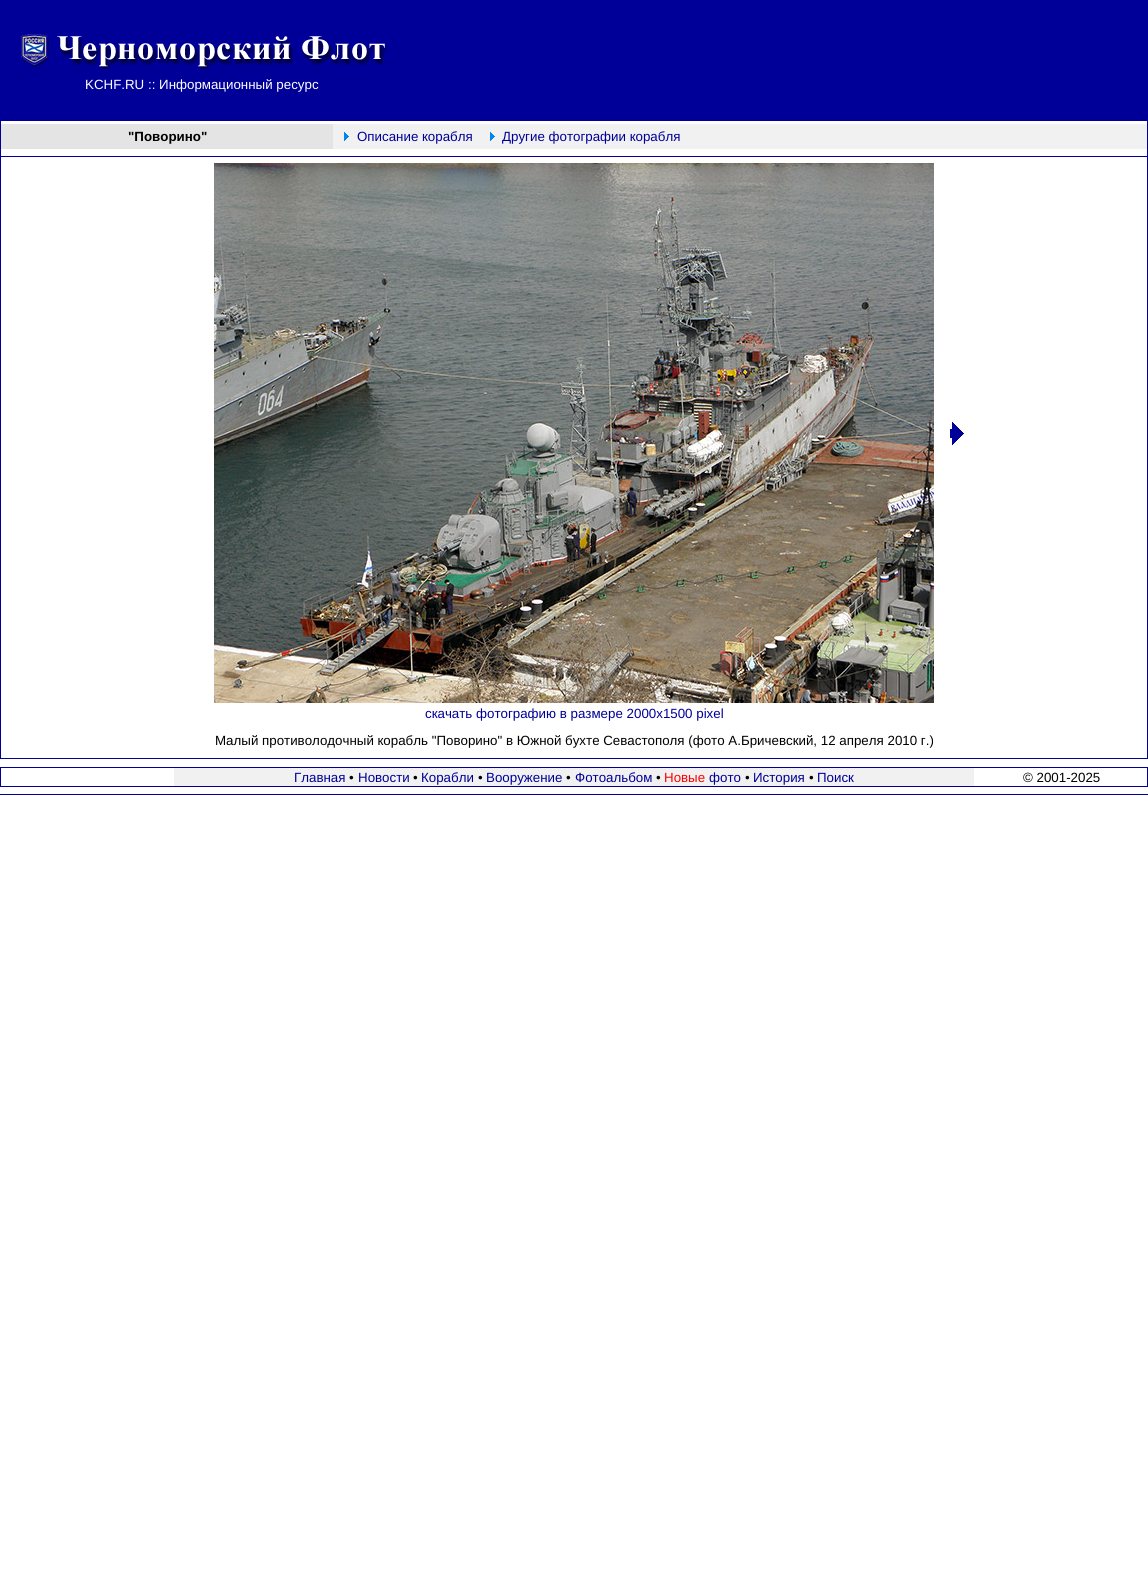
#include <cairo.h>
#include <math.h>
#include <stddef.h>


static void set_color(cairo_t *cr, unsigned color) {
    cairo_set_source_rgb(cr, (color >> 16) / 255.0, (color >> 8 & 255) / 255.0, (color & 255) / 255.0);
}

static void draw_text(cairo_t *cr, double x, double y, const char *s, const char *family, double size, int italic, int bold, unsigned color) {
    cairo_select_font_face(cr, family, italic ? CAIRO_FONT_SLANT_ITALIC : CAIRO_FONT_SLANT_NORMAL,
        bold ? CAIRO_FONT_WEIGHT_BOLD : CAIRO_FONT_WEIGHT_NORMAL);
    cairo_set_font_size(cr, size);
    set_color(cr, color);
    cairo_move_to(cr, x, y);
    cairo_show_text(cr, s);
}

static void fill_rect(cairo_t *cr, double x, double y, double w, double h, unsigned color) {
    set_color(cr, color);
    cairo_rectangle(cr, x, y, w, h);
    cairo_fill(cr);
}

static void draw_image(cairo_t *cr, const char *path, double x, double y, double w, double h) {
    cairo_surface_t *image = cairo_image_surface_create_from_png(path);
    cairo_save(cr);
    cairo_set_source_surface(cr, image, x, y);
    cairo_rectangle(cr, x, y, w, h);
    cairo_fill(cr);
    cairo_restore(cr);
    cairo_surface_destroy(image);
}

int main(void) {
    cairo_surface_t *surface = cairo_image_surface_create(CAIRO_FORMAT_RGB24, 1148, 1577);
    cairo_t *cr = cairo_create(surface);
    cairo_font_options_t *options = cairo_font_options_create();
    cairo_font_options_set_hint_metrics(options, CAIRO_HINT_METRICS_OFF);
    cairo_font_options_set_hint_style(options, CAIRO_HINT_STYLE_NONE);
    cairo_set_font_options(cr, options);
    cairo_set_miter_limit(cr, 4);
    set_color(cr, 0xFFFFFF);
    cairo_paint(cr);
    fill_rect(cr, 0, 0, 1148, 759, 0x000099);
    fill_rect(cr, 1, 121, 1146, 637, 0xFFFFFF);
    draw_image(cr, "assets/img1.png", 21, 34, 366, 35);
    draw_text(cr, 85, 89, "KCHF.RU :: Информационный ресурс", "Liberation Sans", 13.33, 0, 0, 0xFFFFFF);
    fill_rect(cr, 1, 124, 332, 25, 0xE4E4E4);
    draw_text(cr, 128, 141, "\"Поворино\"", "Liberation Sans", 13.33, 0, 1, 0x000000);
    fill_rect(cr, 333, 124, 814, 25, 0xF1F1F1);
    draw_image(cr, "assets/img2.png", 344, 132, 5, 9);
    draw_text(cr, 357, 141, "Описание корабля", "Liberation Sans", 13.33, 0, 0, 0x000099);
    draw_image(cr, "assets/img2.png", 490, 132, 5, 9);
    draw_text(cr, 502, 141, "Другие фотографии корабля", "Liberation Sans", 13.33, 0, 0, 0x000099);
    fill_rect(cr, 1, 156, 1146, 1, 0x000099);
    draw_image(cr, "assets/img3.png", 214, 163, 720, 540);
    draw_image(cr, "assets/img4.png", 950, 422, 14, 23);
    draw_text(cr, 425, 718, "скачать фотографию в размере 2000х1500 pixel", "Liberation Sans", 13.33, 0, 0, 0x000099);
    draw_text(cr, 215, 745, "Малый противолодочный корабль \"Поворино\" в Южной бухте Севастополя (фото А.Бричевский, 12 апреля 2010 г.)", "Liberation Sans", 13.33, 0, 0, 0x000000);
    fill_rect(cr, 0, 767, 1148, 20, 0x000099);
    fill_rect(cr, 1, 768, 1146, 18, 0xFFFFFF);
    fill_rect(cr, 174, 768, 800, 18, 0xF1F1F1);
    draw_text(cr, 294, 782, "Главная", "Liberation Sans", 13.33, 0, 0, 0x000099);
    draw_text(cr, 349, 782, "•", "Liberation Sans", 13.33, 0, 0, 0x000000);
    draw_text(cr, 358, 782, "Новости", "Liberation Sans", 13.33, 0, 0, 0x000099);
    draw_text(cr, 413, 782, "•", "Liberation Sans", 13.33, 0, 0, 0x000000);
    draw_text(cr, 421, 782, "Корабли", "Liberation Sans", 13.33, 0, 0, 0x000099);
    draw_text(cr, 478, 782, "•", "Liberation Sans", 13.33, 0, 0, 0x000000);
    draw_text(cr, 486, 782, "Вооружение", "Liberation Sans", 13.33, 0, 0, 0x000099);
    draw_text(cr, 566, 782, "•", "Liberation Sans", 13.33, 0, 0, 0x000000);
    draw_text(cr, 575, 782, "Фотоальбом", "Liberation Sans", 13.33, 0, 0, 0x000099);
    draw_text(cr, 656, 782, "•", "Liberation Sans", 13.33, 0, 0, 0x000000);
    draw_text(cr, 664, 782, "Новые", "Liberation Sans", 13.33, 0, 0, 0xFF0000);
    draw_text(cr, 709, 782, "фото", "Liberation Sans", 13.33, 0, 0, 0x000099);
    draw_text(cr, 745, 782, "•", "Liberation Sans", 13.33, 0, 0, 0x000000);
    draw_text(cr, 753, 782, "История", "Liberation Sans", 13.33, 0, 0, 0x000099);
    draw_text(cr, 809, 782, "•", "Liberation Sans", 13.33, 0, 0, 0x000000);
    draw_text(cr, 817, 782, "Поиск", "Liberation Sans", 13.33, 0, 0, 0x000099);
    draw_text(cr, 1023, 782, "© 2001-2025", "Liberation Sans", 13.33, 0, 0, 0x000000);
    fill_rect(cr, 0, 794, 1148, 1, 0x000099);
    cairo_surface_write_to_png(surface, "output.png");
    cairo_font_options_destroy(options);
    cairo_destroy(cr);
    cairo_surface_destroy(surface);
    return 0;
}
